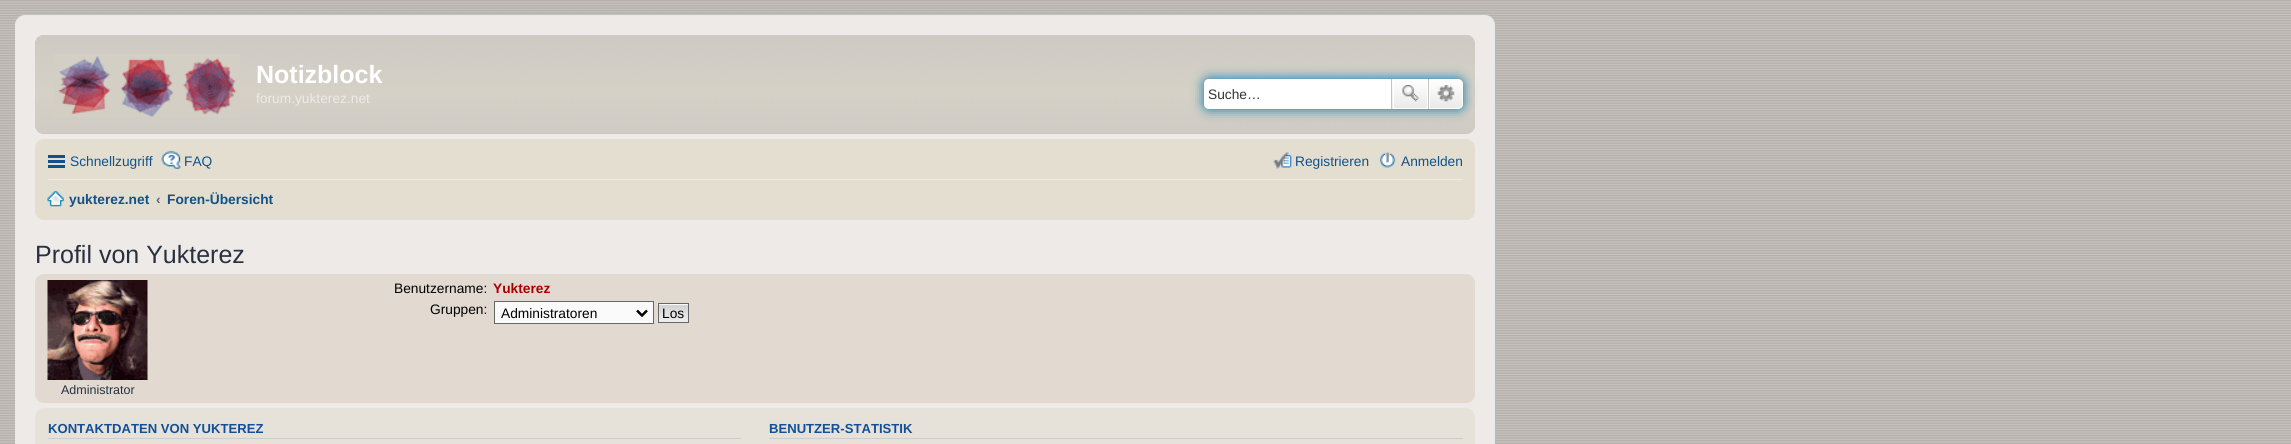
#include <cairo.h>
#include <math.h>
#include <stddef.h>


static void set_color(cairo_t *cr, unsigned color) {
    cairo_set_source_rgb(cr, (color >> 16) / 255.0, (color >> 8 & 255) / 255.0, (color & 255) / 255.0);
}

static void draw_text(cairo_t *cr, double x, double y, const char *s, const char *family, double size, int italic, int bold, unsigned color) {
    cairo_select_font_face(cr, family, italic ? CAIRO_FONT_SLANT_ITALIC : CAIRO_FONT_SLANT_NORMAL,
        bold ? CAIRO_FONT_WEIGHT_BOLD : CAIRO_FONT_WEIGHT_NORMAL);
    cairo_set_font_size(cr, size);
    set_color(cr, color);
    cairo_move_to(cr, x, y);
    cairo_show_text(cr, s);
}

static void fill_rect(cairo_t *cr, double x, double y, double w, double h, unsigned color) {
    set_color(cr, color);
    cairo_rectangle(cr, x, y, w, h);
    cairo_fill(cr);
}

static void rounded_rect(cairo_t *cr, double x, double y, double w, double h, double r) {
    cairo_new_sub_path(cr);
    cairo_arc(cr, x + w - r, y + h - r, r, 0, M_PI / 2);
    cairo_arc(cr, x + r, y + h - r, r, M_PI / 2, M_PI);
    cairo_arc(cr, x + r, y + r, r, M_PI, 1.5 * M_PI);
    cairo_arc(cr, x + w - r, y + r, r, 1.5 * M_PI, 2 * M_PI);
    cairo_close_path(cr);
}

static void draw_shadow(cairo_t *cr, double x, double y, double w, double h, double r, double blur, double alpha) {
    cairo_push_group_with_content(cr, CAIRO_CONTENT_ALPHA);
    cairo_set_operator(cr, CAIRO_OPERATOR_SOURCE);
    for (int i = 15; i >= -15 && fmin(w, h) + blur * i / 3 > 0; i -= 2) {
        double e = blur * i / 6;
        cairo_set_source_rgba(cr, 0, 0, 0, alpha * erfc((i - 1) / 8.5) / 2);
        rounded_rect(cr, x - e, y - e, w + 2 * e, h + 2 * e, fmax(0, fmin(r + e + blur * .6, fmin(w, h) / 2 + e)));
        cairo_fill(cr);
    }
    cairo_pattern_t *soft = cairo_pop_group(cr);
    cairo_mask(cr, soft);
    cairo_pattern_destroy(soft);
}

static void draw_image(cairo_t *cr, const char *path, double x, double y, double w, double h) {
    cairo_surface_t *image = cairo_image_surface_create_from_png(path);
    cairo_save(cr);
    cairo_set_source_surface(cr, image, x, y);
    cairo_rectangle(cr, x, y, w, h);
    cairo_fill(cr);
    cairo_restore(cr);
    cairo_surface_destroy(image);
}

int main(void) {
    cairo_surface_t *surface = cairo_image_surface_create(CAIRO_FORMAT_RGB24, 2291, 444);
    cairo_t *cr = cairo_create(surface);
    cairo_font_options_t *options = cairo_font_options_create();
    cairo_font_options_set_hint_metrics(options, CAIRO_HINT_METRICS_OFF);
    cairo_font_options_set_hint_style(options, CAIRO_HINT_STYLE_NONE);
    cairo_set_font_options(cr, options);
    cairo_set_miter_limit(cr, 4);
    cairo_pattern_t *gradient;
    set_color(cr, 0xFFFFFF);
    cairo_paint(cr);
    draw_image(cr, "assets/img1.png", 0, 0, 2291, 444);
    set_color(cr, 0xEEEAE8);
    rounded_rect(cr, 15.5, 15.5, 1479, 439, 9.5);
    cairo_fill_preserve(cr);
    set_color(cr, 0xE6E9ED);
    cairo_set_line_width(cr, 1);
    cairo_stroke(cr);
    set_color(cr, 0xCBC1B1);
    rounded_rect(cr, 35, 35, 1440, 99, 9);
    cairo_fill(cr);
    draw_image(cr, "assets/img2.png", 35, 35, 1440, 99);
    draw_image(cr, "assets/img3.png", 54, 54, 186, 63);
    draw_text(cr, 256, 83, "Notizblock", "Liberation Sans", 25, 0, 1, 0xFFFFFF);
    draw_text(cr, 256, 103, "forum.yukterez.net", "Liberation Sans", 13.75, 0, 0, 0xEEEAE8);
    set_color(cr, 0x0075B0);
    draw_shadow(cr, 1204, 79, 259, 30, 5, 6, 1);
    set_color(cr, 0xFFFFFF);
    cairo_new_path(cr);
    cairo_move_to(cr, 1209, 79);
    cairo_line_to(cr, 1391, 79);
    cairo_line_to(cr, 1391, 109);
    cairo_line_to(cr, 1209, 109);
    cairo_curve_to(cr, 1206, 109, 1204, 107, 1204, 104);
    cairo_line_to(cr, 1204, 84);
    cairo_curve_to(cr, 1204, 81, 1206, 79, 1209, 79);
    cairo_close_path(cr);
    cairo_fill(cr);
    draw_text(cr, 1208, 99, "Suche…", "Liberation Sans", 13.75, 0, 0, 0x333333);
    gradient = cairo_pattern_create_linear(1410, 79, 1410, 109);
    cairo_pattern_add_color_stop_rgba(gradient, 0, 1, 1, 1, 1);
    cairo_pattern_add_color_stop_rgba(gradient, 1, 0.914, 0.914, 0.914, 1);
    cairo_set_source(cr, gradient);
    cairo_pattern_destroy(gradient);
    cairo_rectangle(cr, 1392, 79, 35, 30);
    cairo_fill(cr);
    cairo_rectangle(cr, 1393.5, 79.5, 34, 29);
    set_color(cr, 0xFFFFFF);
    cairo_stroke(cr);
    fill_rect(cr, 1428, 79, 1, 30, 0xC7C3BF);
    fill_rect(cr, 1391, 79, 1, 30, 0xC7C3BF);
    draw_image(cr, "assets/img4.png", 1402, 85, 17, 17);
    gradient = cairo_pattern_create_linear(1446, 79, 1446, 109);
    cairo_pattern_add_color_stop_rgba(gradient, 0, 1, 1, 1, 1);
    cairo_pattern_add_color_stop_rgba(gradient, 1, 0.914, 0.914, 0.914, 1);
    cairo_set_source(cr, gradient);
    cairo_pattern_destroy(gradient);
    cairo_new_path(cr);
    cairo_move_to(cr, 1429.5, 79.5);
    cairo_line_to(cr, 1458, 79.5);
    cairo_curve_to(cr, 1460.5, 79.5, 1462.5, 81.5, 1462.5, 84);
    cairo_line_to(cr, 1462.5, 104);
    cairo_curve_to(cr, 1462.5, 106.5, 1460.5, 108.5, 1458, 108.5);
    cairo_line_to(cr, 1429.5, 108.5);
    cairo_close_path(cr);
    cairo_fill_preserve(cr);
    set_color(cr, 0xFFFFFF);
    cairo_stroke(cr);
    draw_image(cr, "assets/img5.png", 1437, 85, 18, 17);
    set_color(cr, 0xE4DED0);
    rounded_rect(cr, 35, 139, 1440, 81, 9);
    cairo_fill(cr);
    fill_rect(cr, 48, 155, 17, 3, 0x105289);
    fill_rect(cr, 48, 160, 17, 3, 0x105289);
    fill_rect(cr, 48, 165, 17, 3, 0x105289);
    draw_text(cr, 70, 166, "Schnellzugriff", "Liberation Sans", 13.75, 0, 0, 0x105289);
    draw_image(cr, "assets/img6.png", 161, 151, 21, 18);
    draw_text(cr, 184, 166, "FAQ", "Liberation Sans", 13.75, 0, 0, 0x105289);
    draw_image(cr, "assets/img7.png", 1273, 152, 19, 17);
    draw_text(cr, 1295, 166, "Registrieren", "Liberation Sans", 13.75, 0, 0, 0x105289);
    draw_image(cr, "assets/img8.png", 1379, 152, 17, 16);
    draw_text(cr, 1401, 166, "Anmelden", "Liberation Sans", 13.75, 0, 0, 0x105289);
    fill_rect(cr, 48, 179, 1415, 1, 0xEEEAE8);
    draw_image(cr, "assets/img9.png", 47, 191, 17, 16);
    draw_text(cr, 69, 204, "yukterez.net", "Liberation Sans", 13.75, 0, 1, 0x105289);
    draw_text(cr, 156, 204, "‹", "Liberation Sans", 13.75, 0, 1, 0x536482);
    draw_text(cr, 167, 204, "Foren-Übersicht", "Liberation Sans", 13.75, 0, 1, 0x105289);
    draw_text(cr, 35, 263, "Profil von Yukterez", "Liberation Sans", 25, 0, 0, 0x28313F);
    set_color(cr, 0xE2DAD1);
    rounded_rect(cr, 35, 274, 1440, 129, 9);
    cairo_fill(cr);
    draw_text(cr, 394, 293, "Benutzername:", "Liberation Sans", 13.75, 0, 0, 0x000000);
    draw_text(cr, 493, 293, "Yukterez", "Liberation Sans", 13.75, 0, 1, 0xAA0000);
    draw_text(cr, 430, 314, "Gruppen:", "Liberation Sans", 13.75, 0, 0, 0x000000);
    set_color(cr, 0xFAFAFA);
    cairo_rectangle(cr, 494.5, 301.5, 159, 22);
    cairo_fill_preserve(cr);
    set_color(cr, 0x666666);
    cairo_stroke(cr);
    cairo_new_path(cr);
    cairo_move_to(cr, 637, 310.5);
    cairo_line_to(cr, 642, 315.5);
    cairo_line_to(cr, 647, 310.5);
    set_color(cr, 0x000000);
    cairo_set_line_width(cr, 2.5);
    cairo_stroke(cr);
    draw_text(cr, 501, 318, "Administratoren", "Liberation Sans", 13.75, 0, 0, 0x000000);
    draw_image(cr, "assets/img10.png", 657, 303, 31, 20);
    cairo_rectangle(cr, 658.5, 303.5, 30, 19);
    set_color(cr, 0x666666);
    cairo_set_line_width(cr, 1);
    cairo_stroke(cr);
    draw_text(cr, 662, 318, "Los", "Liberation Sans", 13.75, 0, 0, 0x000000);
    draw_image(cr, "assets/img11.png", 47, 280, 101, 100);
    draw_text(cr, 61, 394, "Administrator", "Liberation Sans", 12.5, 0, 0, 0x28313F);
    set_color(cr, 0xE7E2D9);
    rounded_rect(cr, 35, 408, 1440, 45, 9);
    cairo_fill(cr);
    fill_rect(cr, 48, 438, 693, 1, 0xCCCCCC);
    draw_text(cr, 48, 433, "KONTAKTDATEN VON YUKTEREZ", "Liberation Sans", 13.1, 0, 1, 0x115098);
    fill_rect(cr, 769, 438, 694, 1, 0xCCCCCC);
    draw_text(cr, 769, 433, "BENUTZER-STATISTIK", "Liberation Sans", 13.1, 0, 1, 0x115098);
    cairo_surface_write_to_png(surface, "output.png");
    cairo_font_options_destroy(options);
    cairo_destroy(cr);
    cairo_surface_destroy(surface);
    return 0;
}
